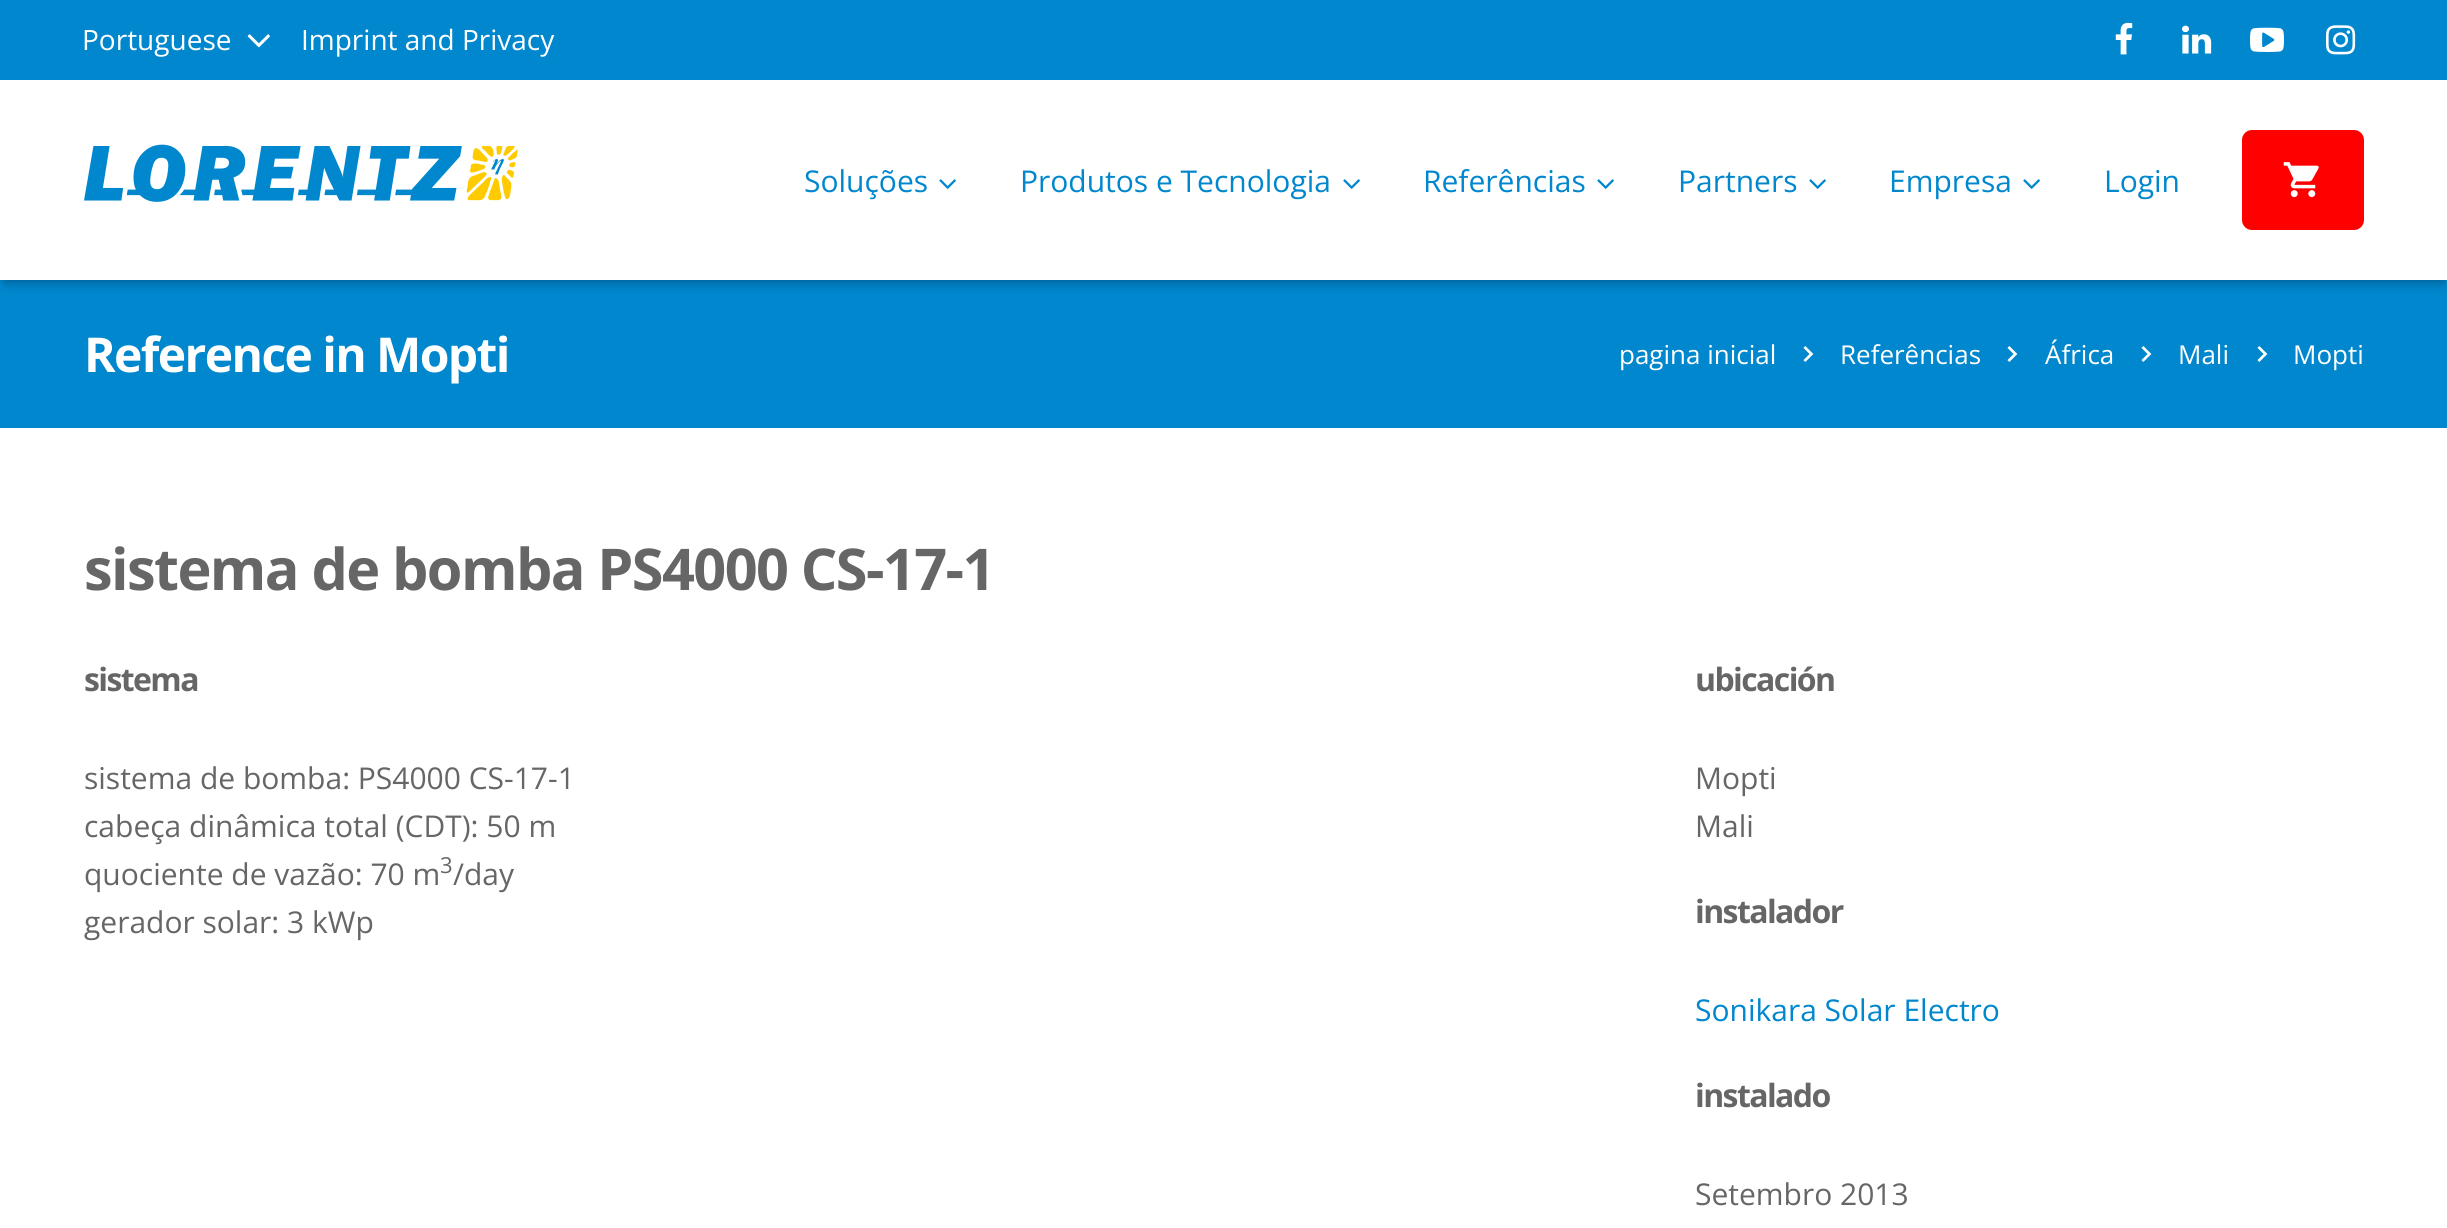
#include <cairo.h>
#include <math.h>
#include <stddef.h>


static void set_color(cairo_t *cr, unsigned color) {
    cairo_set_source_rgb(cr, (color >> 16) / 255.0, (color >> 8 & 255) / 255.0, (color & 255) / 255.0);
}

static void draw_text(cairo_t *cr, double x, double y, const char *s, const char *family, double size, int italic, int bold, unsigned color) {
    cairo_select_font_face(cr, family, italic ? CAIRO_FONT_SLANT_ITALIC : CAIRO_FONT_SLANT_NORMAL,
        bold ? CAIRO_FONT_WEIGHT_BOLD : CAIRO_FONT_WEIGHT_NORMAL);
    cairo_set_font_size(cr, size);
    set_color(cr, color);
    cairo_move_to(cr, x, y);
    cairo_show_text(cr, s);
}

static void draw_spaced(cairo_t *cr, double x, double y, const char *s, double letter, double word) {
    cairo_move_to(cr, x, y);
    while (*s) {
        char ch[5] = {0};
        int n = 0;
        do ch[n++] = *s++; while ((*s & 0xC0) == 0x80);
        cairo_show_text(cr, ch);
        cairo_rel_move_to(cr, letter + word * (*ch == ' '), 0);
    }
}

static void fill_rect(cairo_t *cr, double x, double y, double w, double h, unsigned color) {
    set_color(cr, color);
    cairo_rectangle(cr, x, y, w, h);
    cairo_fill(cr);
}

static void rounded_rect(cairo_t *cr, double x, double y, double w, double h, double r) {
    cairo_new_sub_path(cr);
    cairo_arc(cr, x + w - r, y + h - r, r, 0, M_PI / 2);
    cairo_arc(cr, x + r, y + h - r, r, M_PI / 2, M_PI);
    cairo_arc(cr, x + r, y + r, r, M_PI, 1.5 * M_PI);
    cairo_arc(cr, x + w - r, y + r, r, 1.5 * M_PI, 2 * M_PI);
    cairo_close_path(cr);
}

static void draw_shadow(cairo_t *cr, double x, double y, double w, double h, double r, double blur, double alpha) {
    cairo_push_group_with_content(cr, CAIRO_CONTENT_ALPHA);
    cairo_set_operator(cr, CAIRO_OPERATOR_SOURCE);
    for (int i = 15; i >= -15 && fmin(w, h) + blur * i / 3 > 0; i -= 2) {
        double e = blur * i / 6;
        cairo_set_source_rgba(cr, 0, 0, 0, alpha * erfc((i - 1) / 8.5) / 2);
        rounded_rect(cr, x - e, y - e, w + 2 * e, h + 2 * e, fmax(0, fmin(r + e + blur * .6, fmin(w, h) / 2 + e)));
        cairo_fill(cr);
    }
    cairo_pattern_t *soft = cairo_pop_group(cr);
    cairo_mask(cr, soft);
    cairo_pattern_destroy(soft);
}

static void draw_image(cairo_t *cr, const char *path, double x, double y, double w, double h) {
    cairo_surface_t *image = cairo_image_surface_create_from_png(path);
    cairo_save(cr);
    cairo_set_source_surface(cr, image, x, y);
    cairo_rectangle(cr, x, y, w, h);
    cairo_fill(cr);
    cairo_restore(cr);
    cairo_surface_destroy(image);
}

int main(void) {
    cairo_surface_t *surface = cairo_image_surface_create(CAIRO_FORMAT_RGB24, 2447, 1228);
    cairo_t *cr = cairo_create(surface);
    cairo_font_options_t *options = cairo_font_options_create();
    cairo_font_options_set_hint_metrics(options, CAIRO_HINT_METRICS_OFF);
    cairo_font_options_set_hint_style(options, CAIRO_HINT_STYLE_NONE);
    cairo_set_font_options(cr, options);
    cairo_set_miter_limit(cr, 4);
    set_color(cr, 0xFFFFFF);
    cairo_paint(cr);
    fill_rect(cr, 0, 0, 2447, 428, 0x0087CE);
    draw_text(cr, 82, 50, "Portuguese", "Open Sans", 28, 0, 0, 0xFFFFFF);
    draw_image(cr, "assets/img1.png", 247, 34, 23, 14);
    draw_text(cr, 301, 50, "Imprint and Privacy", "Open Sans", 28, 0, 0, 0xFFFFFF);
    draw_image(cr, "assets/img2.png", 2115, 22, 18, 33);
    draw_image(cr, "assets/img3.png", 2182, 25, 30, 29);
    draw_image(cr, "assets/img4.png", 2250, 27, 34, 25);
    draw_image(cr, "assets/img5.png", 2326, 25, 30, 30);
    set_color(cr, 0x000000);
    draw_shadow(cr, 2, 86, 2444, 196, 0, 1, 0.05);
    draw_shadow(cr, 4, 92, 2440, 192, 0, 5, 0.22);
    fill_rect(cr, 0, 80, 2447, 200, 0xFFFFFF);
    draw_image(cr, "assets/img6.png", 84, 144, 420, 58);
    draw_image(cr, "assets/img7.png", 466, 146, 52, 55);
    draw_text(cr, 804, 192, "Soluções", "Open Sans", 30, 0, 0, 0x0087CE);
    draw_image(cr, "assets/img8.png", 939, 179, 17, 10);
    draw_text(cr, 1020, 192, "Produtos e Tecnologia", "Open Sans", 30, 0, 0, 0x0087CE);
    draw_image(cr, "assets/img8.png", 1343, 179, 17, 10);
    draw_text(cr, 1423, 192, "Referências", "Open Sans", 30, 0, 0, 0x0087CE);
    draw_image(cr, "assets/img8.png", 1597, 179, 17, 10);
    draw_text(cr, 1678, 192, "Partners", "Open Sans", 30, 0, 0, 0x0087CE);
    draw_image(cr, "assets/img8.png", 1809, 179, 17, 10);
    draw_text(cr, 1889, 192, "Empresa", "Open Sans", 30, 0, 0, 0x0087CE);
    draw_image(cr, "assets/img8.png", 2023, 179, 17, 10);
    draw_text(cr, 2104, 192, "Login", "Open Sans", 30, 0, 0, 0x0087CE);
    set_color(cr, 0xFF0000);
    rounded_rect(cr, 2242, 130, 122, 100, 10);
    cairo_fill(cr);
    draw_image(cr, "assets/img9.png", 2283, 162, 36, 36);
    cairo_select_font_face(cr, "Open Sans", CAIRO_FONT_SLANT_NORMAL, CAIRO_FONT_WEIGHT_BOLD);
    cairo_set_font_size(cr, 48);
    set_color(cr, 0xFFFFFF);
    draw_spaced(cr, 84, 372, "Reference in Mopti", -1.6, 0);
    draw_text(cr, 1619, 364, "pagina inicial", "Open Sans", 26, 0, 0, 0xFFFFFF);
    draw_image(cr, "assets/img10.png", 1803, 346, 11, 16);
    draw_text(cr, 1840, 364, "Referências", "Open Sans", 26, 0, 0, 0xFFFFFF);
    draw_image(cr, "assets/img10.png", 2007, 346, 11, 16);
    draw_text(cr, 2045, 364, "África", "Open Sans", 26, 0, 0, 0xFFFFFF);
    draw_image(cr, "assets/img10.png", 2141, 346, 11, 16);
    draw_text(cr, 2178, 364, "Mali", "Open Sans", 26, 0, 0, 0xFFFFFF);
    draw_image(cr, "assets/img10.png", 2257, 346, 11, 16);
    draw_text(cr, 2293, 364, "Mopti", "Open Sans", 26, 0, 0, 0xFFFFFF);
    cairo_select_font_face(cr, "Open Sans", CAIRO_FONT_SLANT_NORMAL, CAIRO_FONT_WEIGHT_BOLD);
    cairo_set_font_size(cr, 57.6);
    set_color(cr, 0x666666);
    draw_spaced(cr, 84, 590, "sistema de bomba PS4000 CS-17-1", -1.6, 0);
    cairo_set_font_size(cr, 32);
    draw_spaced(cr, 84, 691, "sistema", -1.6, 0);
    draw_text(cr, 84, 789, "sistema de bomba: PS4000 CS-17-1", "Open Sans", 30, 0, 0, 0x666666);
    draw_text(cr, 84, 837, "cabeça dinâmica total (CDT): 50 m", "Open Sans", 30, 0, 0, 0x666666);
    draw_text(cr, 84, 885, "quociente de vazão: 70 m", "Open Sans", 30, 0, 0, 0x666666);
    draw_text(cr, 440, 873, "3", "Open Sans", 22, 0, 0, 0x666666);
    draw_text(cr, 453, 885, "/day", "Open Sans", 30, 0, 0, 0x666666);
    draw_text(cr, 84, 933, "gerador solar: 3 kWp", "Open Sans", 30, 0, 0, 0x666666);
    cairo_select_font_face(cr, "Open Sans", CAIRO_FONT_SLANT_NORMAL, CAIRO_FONT_WEIGHT_BOLD);
    cairo_set_font_size(cr, 32);
    draw_spaced(cr, 1695, 691, "ubicación", -1.6, 0);
    draw_text(cr, 1695, 789, "Mopti", "Open Sans", 30, 0, 0, 0x666666);
    draw_text(cr, 1695, 837, "Mali", "Open Sans", 30, 0, 0, 0x666666);
    cairo_select_font_face(cr, "Open Sans", CAIRO_FONT_SLANT_NORMAL, CAIRO_FONT_WEIGHT_BOLD);
    cairo_set_font_size(cr, 32);
    draw_spaced(cr, 1695, 923, "instalador", -1.6, 0);
    draw_text(cr, 1695, 1021, "Sonikara Solar Electro", "Open Sans", 30, 0, 0, 0x0087CE);
    cairo_select_font_face(cr, "Open Sans", CAIRO_FONT_SLANT_NORMAL, CAIRO_FONT_WEIGHT_BOLD);
    cairo_set_font_size(cr, 32);
    set_color(cr, 0x666666);
    draw_spaced(cr, 1695, 1107, "instalado", -1.6, 0);
    draw_text(cr, 1695, 1205, "Setembro 2013", "Open Sans", 30, 0, 0, 0x666666);
    cairo_surface_write_to_png(surface, "output.png");
    cairo_font_options_destroy(options);
    cairo_destroy(cr);
    cairo_surface_destroy(surface);
    return 0;
}
